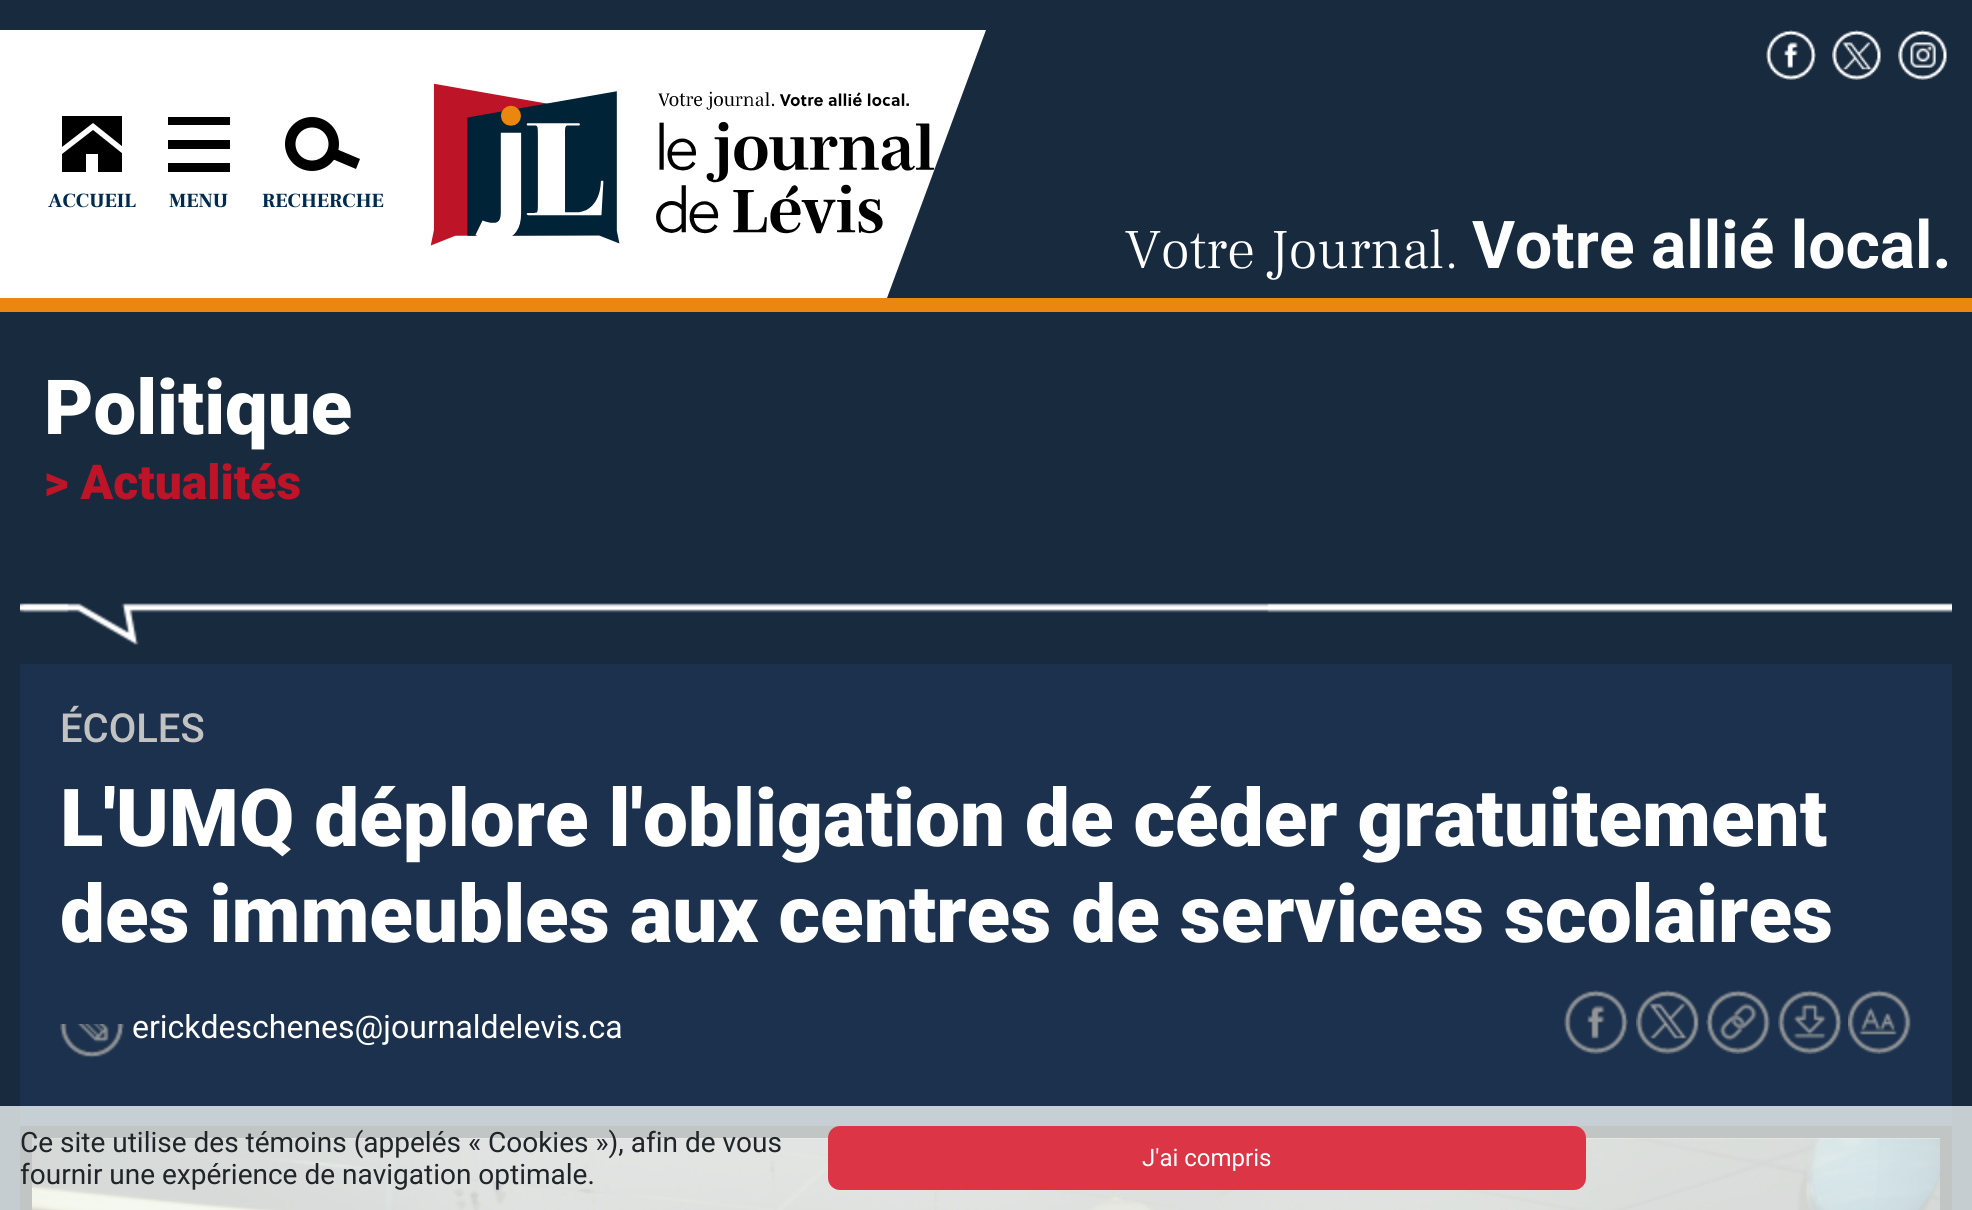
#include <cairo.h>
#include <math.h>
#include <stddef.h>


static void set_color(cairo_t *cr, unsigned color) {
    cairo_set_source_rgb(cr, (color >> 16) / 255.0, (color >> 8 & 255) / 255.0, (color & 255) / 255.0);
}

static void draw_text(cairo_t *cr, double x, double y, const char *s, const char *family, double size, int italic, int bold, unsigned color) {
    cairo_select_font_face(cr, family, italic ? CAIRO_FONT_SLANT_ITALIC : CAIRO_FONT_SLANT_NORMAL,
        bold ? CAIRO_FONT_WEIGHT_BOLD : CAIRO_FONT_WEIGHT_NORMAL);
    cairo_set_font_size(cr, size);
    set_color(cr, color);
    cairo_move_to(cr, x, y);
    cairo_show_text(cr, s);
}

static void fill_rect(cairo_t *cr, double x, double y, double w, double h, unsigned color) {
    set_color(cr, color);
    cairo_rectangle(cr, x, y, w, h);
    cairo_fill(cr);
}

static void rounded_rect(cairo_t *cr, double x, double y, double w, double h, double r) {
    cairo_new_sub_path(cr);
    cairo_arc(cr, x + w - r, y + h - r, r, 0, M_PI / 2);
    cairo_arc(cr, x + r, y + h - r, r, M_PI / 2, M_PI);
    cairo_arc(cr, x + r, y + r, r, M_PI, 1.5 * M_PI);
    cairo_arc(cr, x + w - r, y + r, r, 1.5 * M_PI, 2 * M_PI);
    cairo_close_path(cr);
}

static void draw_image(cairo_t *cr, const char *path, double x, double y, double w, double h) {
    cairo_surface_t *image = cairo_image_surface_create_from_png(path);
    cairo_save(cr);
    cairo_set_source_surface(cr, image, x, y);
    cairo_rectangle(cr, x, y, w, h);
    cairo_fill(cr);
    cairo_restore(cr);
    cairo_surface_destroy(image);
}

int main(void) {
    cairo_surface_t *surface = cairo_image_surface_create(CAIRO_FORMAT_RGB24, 1972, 1210);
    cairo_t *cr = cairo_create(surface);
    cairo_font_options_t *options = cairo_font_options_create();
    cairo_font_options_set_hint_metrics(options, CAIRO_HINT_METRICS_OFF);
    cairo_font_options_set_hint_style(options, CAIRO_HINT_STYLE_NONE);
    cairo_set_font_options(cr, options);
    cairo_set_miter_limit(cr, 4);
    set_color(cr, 0x182A3E);
    cairo_paint(cr);
    fill_rect(cr, 0, 298, 1972, 14, 0xEB870F);
    set_color(cr, 0xFFFFFF);
    cairo_new_path(cr);
    cairo_move_to(cr, 0, 30);
    cairo_line_to(cr, 0, 298);
    cairo_line_to(cr, 887, 298);
    cairo_line_to(cr, 986, 30);
    cairo_close_path(cr);
    cairo_fill(cr);
    fill_rect(cr, 62, 116, 60, 31, 0x000000);
    cairo_save(cr);
    cairo_rectangle(cr, 62, 116, 60, 56);
    cairo_clip(cr);
    set_color(cr, 0xFFFFFF);
    cairo_new_path(cr);
    cairo_move_to(cr, 123, 171);
    cairo_line_to(cr, 62, 171);
    cairo_line_to(cr, 62, 147);
    cairo_line_to(cr, 93, 123);
    cairo_line_to(cr, 123, 147);
    cairo_close_path(cr);
    cairo_fill(cr);
    set_color(cr, 0x000000);
    cairo_new_path(cr);
    cairo_move_to(cr, 123, 173);
    cairo_line_to(cr, 62, 173);
    cairo_line_to(cr, 62, 154);
    cairo_line_to(cr, 93, 130);
    cairo_line_to(cr, 123, 154);
    cairo_close_path(cr);
    cairo_fill(cr);
    cairo_restore(cr);
    fill_rect(cr, 86, 154, 12, 18, 0xFFFFFF);
    draw_text(cr, 48, 207, "ACCUEIL", "Frank Ruhl Libre ExtraBold", 20, 0, 0, 0x002B50);
    fill_rect(cr, 168, 117, 62, 8, 0x000000);
    fill_rect(cr, 168, 140, 62, 9, 0x000000);
    fill_rect(cr, 168, 163, 62, 9, 0x000000);
    draw_text(cr, 169, 207, "MENU", "Frank Ruhl Libre ExtraBold", 20, 0, 0, 0x002B50);
    set_color(cr, 0x000000);
    cairo_new_path(cr);
    cairo_move_to(cr, 318, 153);
    cairo_line_to(cr, 322, 143);
    cairo_line_to(cr, 360, 159);
    cairo_line_to(cr, 356, 169);
    cairo_close_path(cr);
    cairo_fill(cr);
    cairo_arc(cr, 312, 144, 27, 0, 2 * M_PI);
    cairo_fill(cr);
    set_color(cr, 0xFFFFFF);
    cairo_arc(cr, 312, 144, 16.5, 0, 2 * M_PI);
    cairo_fill(cr);
    draw_text(cr, 262, 207, "RECHERCHE", "Frank Ruhl Libre ExtraBold", 20, 0, 0, 0x002B50);
    draw_image(cr, "assets/img1.png", 430, 83, 505, 163);
    draw_image(cr, "assets/img2.png", 1766, 30, 50, 50);
    draw_image(cr, "assets/img3.png", 1832, 30, 49, 50);
    draw_image(cr, "assets/img4.png", 1898, 30, 49, 50);
    draw_text(cr, 1125, 268, "Votre Journal.", "Frank Ruhl Libre Light", 56, 0, 0, 0xFFFFFF);
    draw_text(cr, 1472, 268, "Votre allié local.", "Roboto", 66, 0, 1, 0xFFFFFF);
    fill_rect(cr, 0, 1106, 1972, 104, 0xC6CDD0);
    draw_text(cr, 44, 434, "Politique", "Roboto Black", 76, 0, 0, 0xFFFFFF);
    draw_text(cr, 44, 499, "> Actualités", "Roboto Black", 48, 0, 0, 0xBD1427);
    draw_image(cr, "assets/img5.png", 20, 603, 1932, 43);
    fill_rect(cr, 20, 664, 1932, 442, 0x1B314D);
    fill_rect(cr, 20, 1106, 1932, 20, 0xC6CFD3);
    draw_text(cr, 60, 742, "ÉCOLES", "Roboto Medium", 40, 0, 0, 0xC2C2C2);
    draw_text(cr, 60, 846, "L'UMQ déplore l'obligation de céder gratuitement", "Roboto Black", 80, 0, 0, 0xFFFFFF);
    draw_text(cr, 60, 942, "des immeubles aux centres de services scolaires", "Roboto Black", 80, 0, 0, 0xFFFFFF);
    draw_image(cr, "assets/img6.png", 60, 1024, 64, 34);
    draw_text(cr, 132, 1038, "erickdeschenes@journaldelevis.ca", "Roboto", 32, 0, 0, 0xFFFFFF);
    draw_image(cr, "assets/img7.png", 1564, 990, 64, 64);
    draw_image(cr, "assets/img8.png", 1636, 990, 63, 64);
    draw_image(cr, "assets/img9.png", 1706, 990, 64, 64);
    draw_image(cr, "assets/img10.png", 1778, 990, 64, 64);
    draw_image(cr, "assets/img11.png", 1848, 990, 63, 64);
    fill_rect(cr, 32, 1138, 1908, 1, 0xF4F8F6);
    cairo_rectangle(cr, 26, 1132, 1920, 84);
    set_color(cr, 0xC1C5C3);
    cairo_set_line_width(cr, 12);
    cairo_stroke(cr);
    draw_image(cr, "assets/img12.png", 32, 1138, 1908, 72);
    draw_text(cr, 20, 1152, "Ce site utilise des témoins (appelés « Cookies »), afin de vous", "Roboto", 28, 0, 0, 0x212529);
    set_color(cr, 0xDC3545);
    rounded_rect(cr, 829, 1127, 756, 62, 11);
    cairo_fill_preserve(cr);
    cairo_set_line_width(cr, 2);
    cairo_stroke(cr);
    draw_text(cr, 1142, 1166, "J'ai compris", "Roboto", 24, 0, 0, 0xFFFFFF);
    draw_text(cr, 20, 1184, "fournir une expérience de navigation optimale.", "Roboto", 28, 0, 0, 0x212529);
    cairo_surface_write_to_png(surface, "output.png");
    cairo_font_options_destroy(options);
    cairo_destroy(cr);
    cairo_surface_destroy(surface);
    return 0;
}
